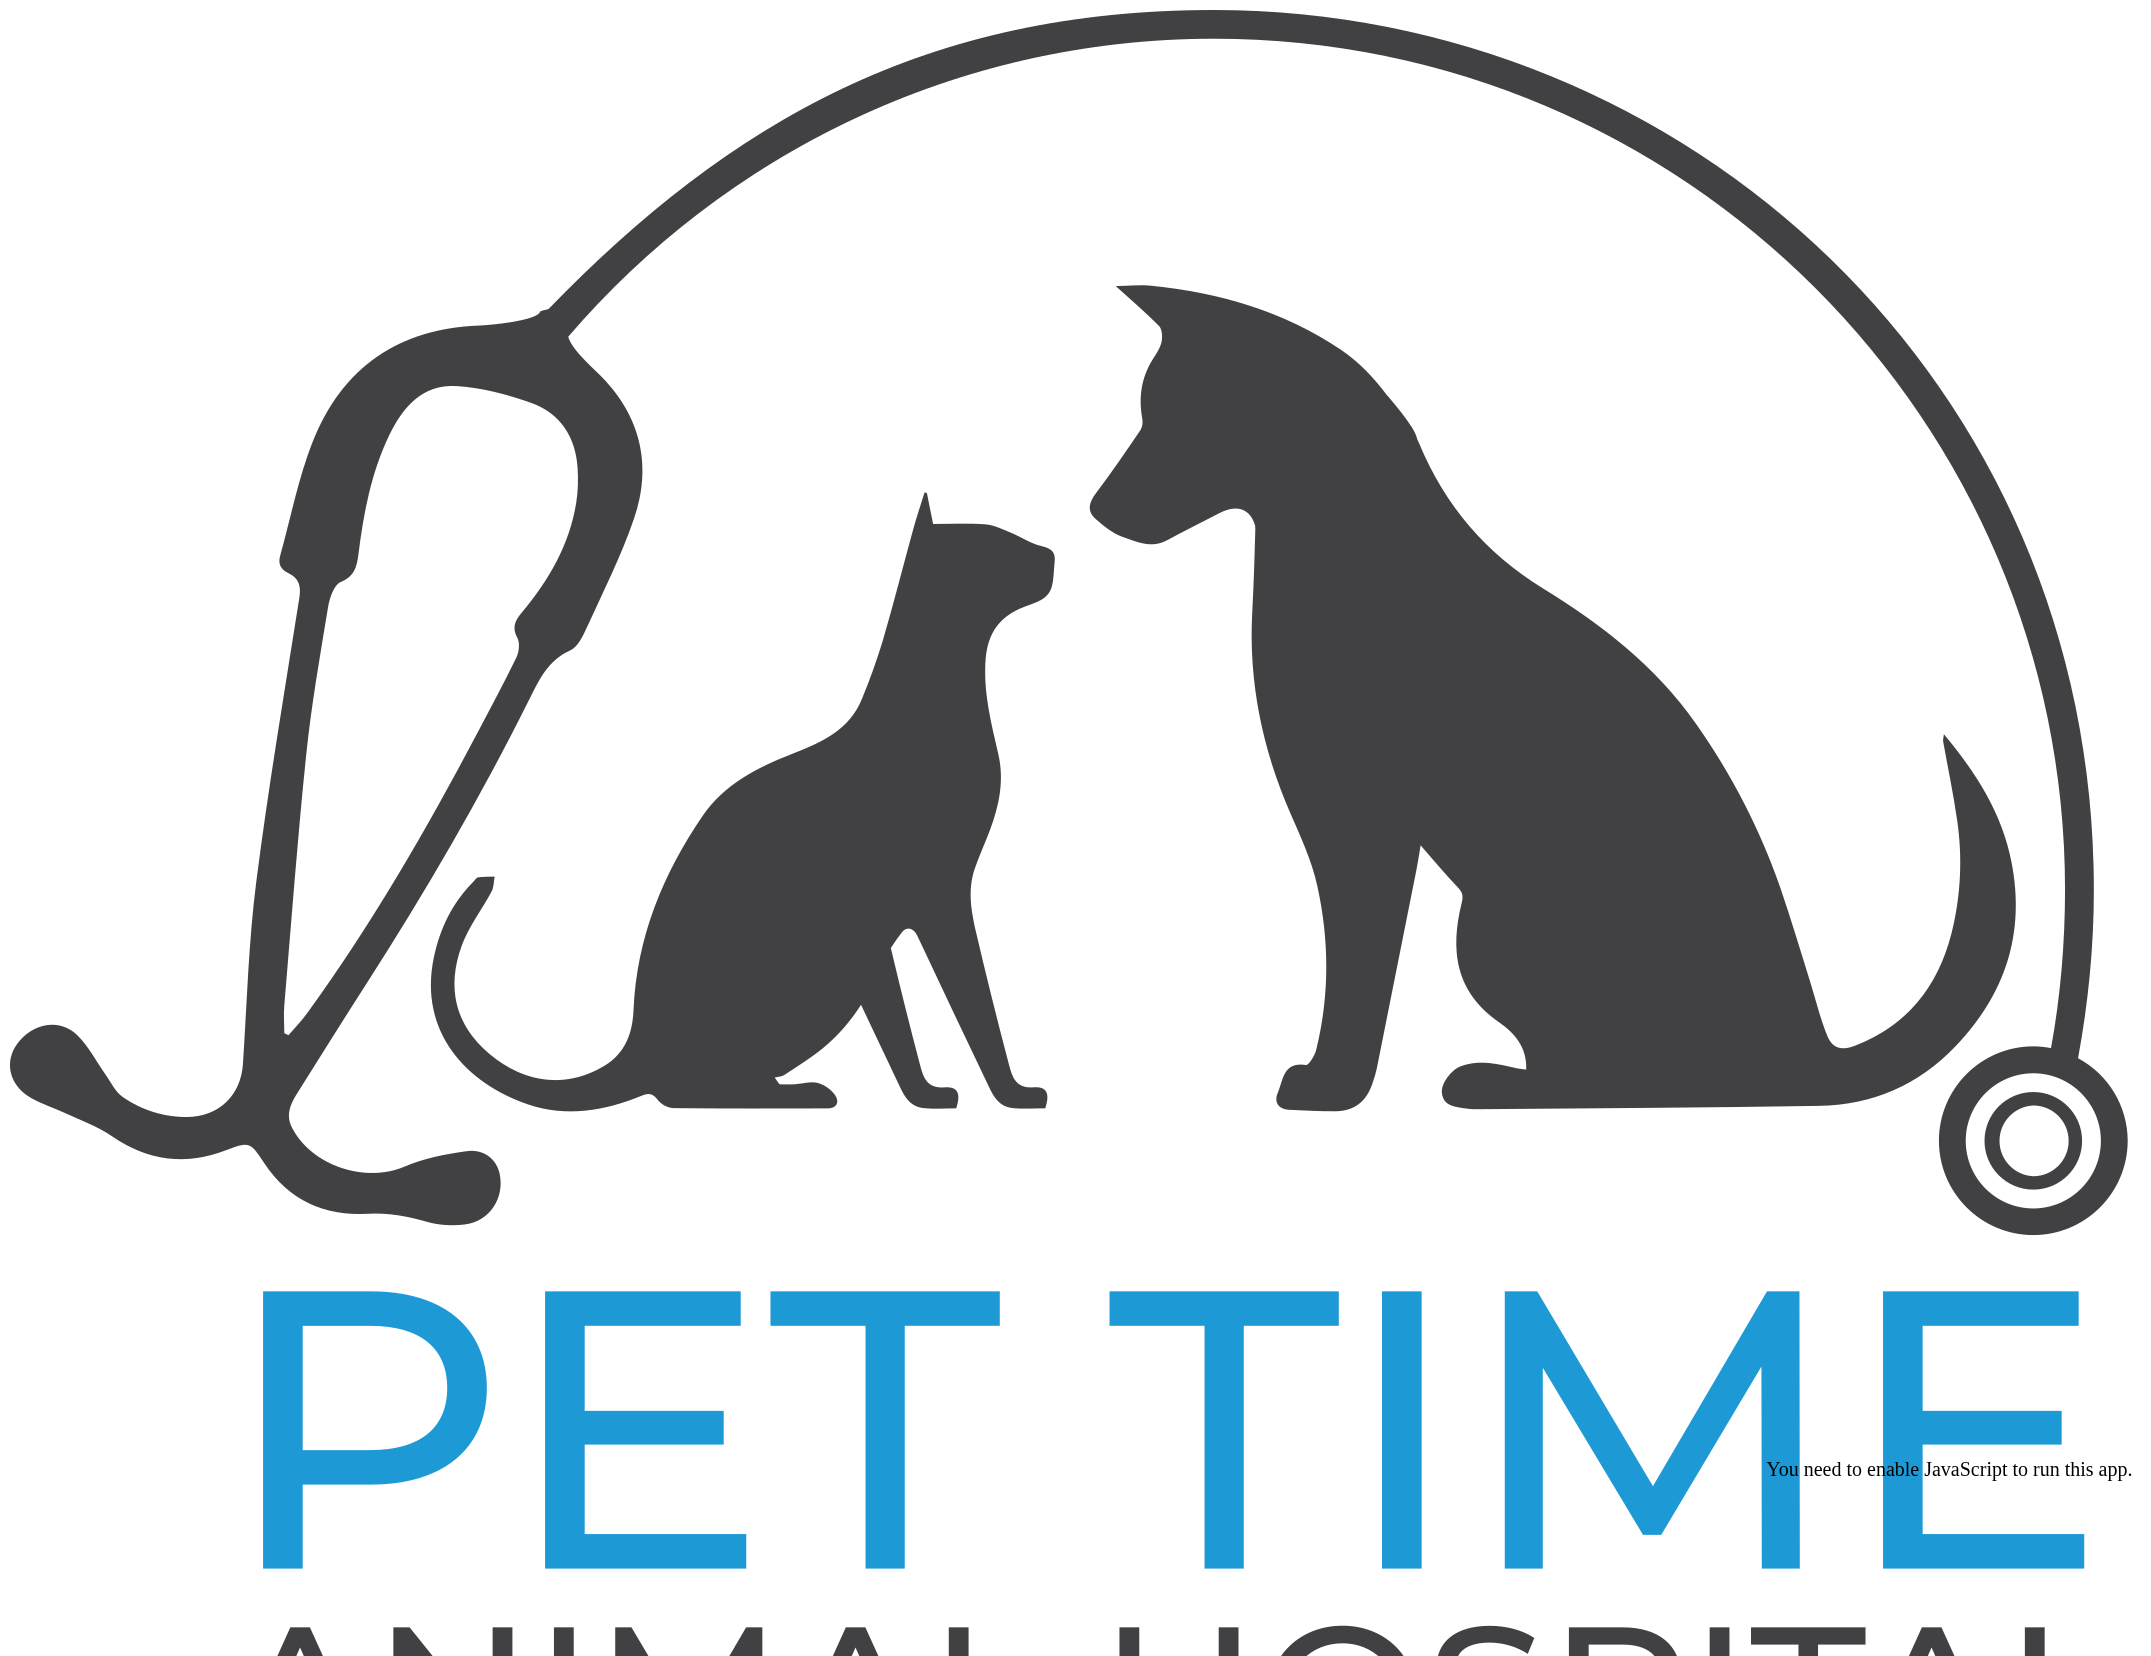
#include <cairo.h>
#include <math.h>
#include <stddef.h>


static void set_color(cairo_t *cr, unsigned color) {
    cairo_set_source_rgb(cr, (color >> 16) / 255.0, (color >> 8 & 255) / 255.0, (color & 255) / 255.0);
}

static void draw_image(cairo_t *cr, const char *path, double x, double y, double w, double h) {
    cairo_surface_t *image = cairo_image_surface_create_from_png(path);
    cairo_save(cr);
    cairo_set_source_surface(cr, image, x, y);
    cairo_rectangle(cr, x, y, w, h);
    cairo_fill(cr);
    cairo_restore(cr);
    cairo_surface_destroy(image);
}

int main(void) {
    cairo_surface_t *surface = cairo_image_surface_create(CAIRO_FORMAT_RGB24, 2151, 1656);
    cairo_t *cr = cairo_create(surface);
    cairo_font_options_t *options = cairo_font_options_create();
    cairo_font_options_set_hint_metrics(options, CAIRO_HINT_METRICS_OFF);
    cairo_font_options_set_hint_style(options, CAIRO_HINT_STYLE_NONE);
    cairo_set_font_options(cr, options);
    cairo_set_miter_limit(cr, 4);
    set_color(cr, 0xFFFFFF);
    cairo_paint(cr);
    draw_image(cr, "assets/img1.png", 10, 10, 2118, 1646);
    draw_image(cr, "assets/img2.png", 1766, 1462, 366, 19);
    cairo_surface_write_to_png(surface, "output.png");
    cairo_font_options_destroy(options);
    cairo_destroy(cr);
    cairo_surface_destroy(surface);
    return 0;
}
